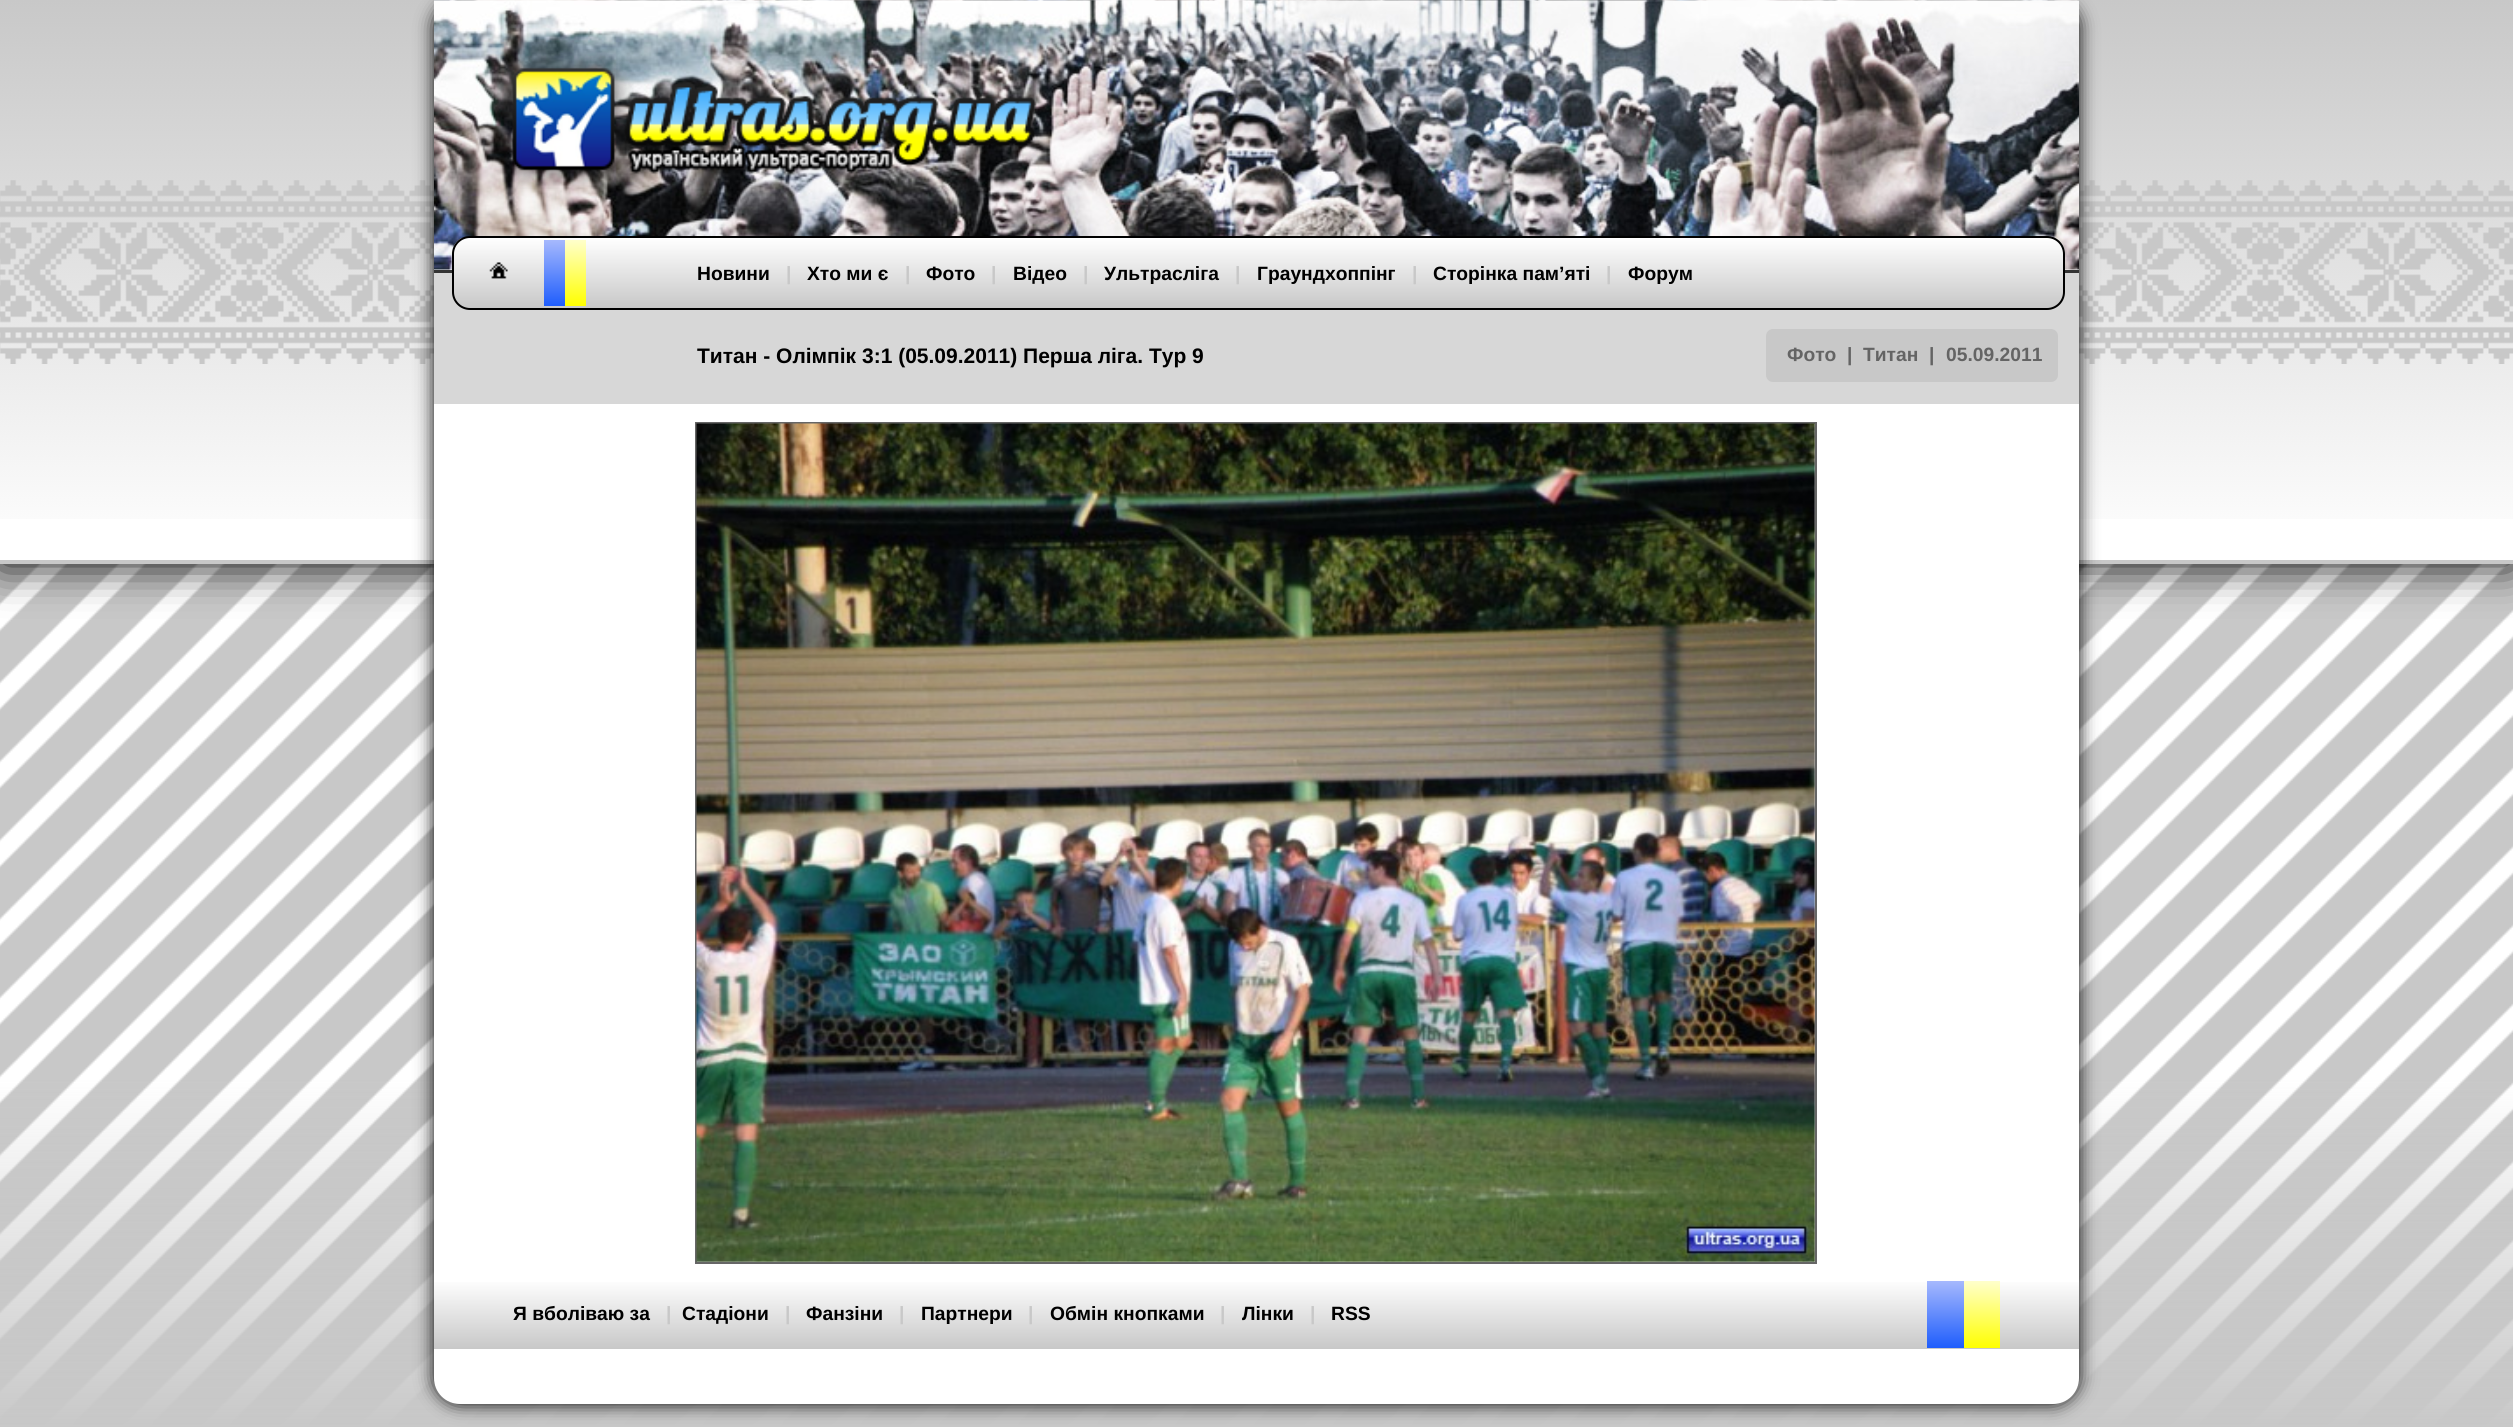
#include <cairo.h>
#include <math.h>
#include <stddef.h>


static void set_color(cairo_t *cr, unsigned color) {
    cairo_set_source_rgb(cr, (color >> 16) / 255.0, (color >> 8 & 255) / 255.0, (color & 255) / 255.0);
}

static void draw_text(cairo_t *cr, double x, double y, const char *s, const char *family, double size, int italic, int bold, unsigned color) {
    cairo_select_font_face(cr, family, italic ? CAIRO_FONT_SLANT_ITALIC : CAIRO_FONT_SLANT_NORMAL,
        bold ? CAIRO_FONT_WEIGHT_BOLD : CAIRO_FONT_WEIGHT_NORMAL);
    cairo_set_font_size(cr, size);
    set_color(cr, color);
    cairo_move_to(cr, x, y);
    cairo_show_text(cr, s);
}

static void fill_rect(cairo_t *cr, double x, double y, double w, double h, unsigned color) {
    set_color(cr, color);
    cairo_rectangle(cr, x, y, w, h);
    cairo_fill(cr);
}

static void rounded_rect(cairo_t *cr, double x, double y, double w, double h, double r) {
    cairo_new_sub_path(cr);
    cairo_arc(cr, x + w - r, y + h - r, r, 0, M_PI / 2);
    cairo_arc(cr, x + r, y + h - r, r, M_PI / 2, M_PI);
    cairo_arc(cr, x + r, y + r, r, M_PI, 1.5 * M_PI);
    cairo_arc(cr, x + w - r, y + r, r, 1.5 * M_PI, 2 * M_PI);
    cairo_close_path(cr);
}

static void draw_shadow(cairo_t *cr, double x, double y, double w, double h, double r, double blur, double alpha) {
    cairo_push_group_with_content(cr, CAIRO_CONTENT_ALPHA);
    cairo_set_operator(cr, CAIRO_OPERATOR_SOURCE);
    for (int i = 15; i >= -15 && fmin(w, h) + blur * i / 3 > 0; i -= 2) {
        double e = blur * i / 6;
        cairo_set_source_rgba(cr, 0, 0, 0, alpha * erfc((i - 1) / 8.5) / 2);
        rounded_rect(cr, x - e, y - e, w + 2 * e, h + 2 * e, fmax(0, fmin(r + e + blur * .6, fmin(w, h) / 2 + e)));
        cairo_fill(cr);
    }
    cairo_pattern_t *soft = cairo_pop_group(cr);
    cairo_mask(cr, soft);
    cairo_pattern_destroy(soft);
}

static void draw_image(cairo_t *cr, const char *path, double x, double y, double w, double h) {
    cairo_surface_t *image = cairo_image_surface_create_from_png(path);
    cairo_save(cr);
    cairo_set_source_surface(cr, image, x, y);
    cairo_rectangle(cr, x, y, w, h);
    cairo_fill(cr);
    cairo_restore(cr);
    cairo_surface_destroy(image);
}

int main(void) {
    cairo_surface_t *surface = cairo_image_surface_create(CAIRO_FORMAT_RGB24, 2513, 1427);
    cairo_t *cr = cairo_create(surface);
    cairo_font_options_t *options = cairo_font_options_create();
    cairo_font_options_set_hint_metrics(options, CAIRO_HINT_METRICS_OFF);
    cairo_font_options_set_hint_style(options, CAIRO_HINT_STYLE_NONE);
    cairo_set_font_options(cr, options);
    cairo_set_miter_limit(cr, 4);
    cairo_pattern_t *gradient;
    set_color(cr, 0xFFFFFF);
    cairo_paint(cr);
    draw_image(cr, "assets/img1.png", 0, 564, 2513, 863);
    set_color(cr, 0x000000);
    draw_shadow(cr, 0, 0, 2513, 564, 0, 22, 1);
    fill_rect(cr, 0, 519, 2513, 41, 0xFFFFFF);
    draw_image(cr, "assets/img2.png", 0, 0, 2513, 519);
    fill_rect(cr, 0, 560, 2513, 4, 0xC8C8C8);
    set_color(cr, 0x000000);
    draw_shadow(cr, 434, 0, 1645, 1404, 26, 9, 1);
    set_color(cr, 0xFFFFFF);
    cairo_new_path(cr);
    cairo_move_to(cr, 434, 0);
    cairo_line_to(cr, 2079, 0);
    cairo_line_to(cr, 2079, 1378);
    cairo_curve_to(cr, 2079, 1392.5, 2067.5, 1404, 2053, 1404);
    cairo_line_to(cr, 460, 1404);
    cairo_curve_to(cr, 445.5, 1404, 434, 1392.5, 434, 1378);
    cairo_close_path(cr);
    cairo_fill(cr);
    draw_image(cr, "assets/img3.png", 434, 0, 1645, 270);
    fill_rect(cr, 434, 270, 1645, 3, 0x333333);
    draw_image(cr, "assets/img4.png", 494, 49, 543, 140);
    fill_rect(cr, 434, 273, 1645, 131, 0xD7D7D7);
    cairo_save(cr);
    rounded_rect(cr, 452, 236, 1613, 74, 18);
    cairo_clip(cr);
    gradient = cairo_pattern_create_linear(1258, 308, 1258, 238);
    cairo_pattern_add_color_stop_rgba(gradient, 0, 0.784, 0.784, 0.784, 1);
    cairo_pattern_add_color_stop_rgba(gradient, 1, 1, 1, 1, 1);
    cairo_set_source(cr, gradient);
    cairo_pattern_destroy(gradient);
    cairo_rectangle(cr, 452, 238, 1613, 70);
    cairo_fill(cr);
    cairo_restore(cr);
    rounded_rect(cr, 453, 237, 1611, 72, 17);
    set_color(cr, 0x000000);
    cairo_stroke(cr);
    draw_image(cr, "assets/img5.png", 489, 262, 19, 17);
    gradient = cairo_pattern_create_linear(555, 240, 555, 306);
    cairo_pattern_add_color_stop_rgba(gradient, 0, 0.651, 0.725, 0.992, 1);
    cairo_pattern_add_color_stop_rgba(gradient, 1, 0.122, 0.365, 0.988, 1);
    cairo_set_source(cr, gradient);
    cairo_pattern_destroy(gradient);
    cairo_rectangle(cr, 544, 240, 21, 66);
    cairo_fill(cr);
    gradient = cairo_pattern_create_linear(576, 240, 576, 306);
    cairo_pattern_add_color_stop_rgba(gradient, 0, 1, 1, 0.8, 1);
    cairo_pattern_add_color_stop_rgba(gradient, 1, 1, 1, 0, 1);
    cairo_set_source(cr, gradient);
    cairo_pattern_destroy(gradient);
    cairo_rectangle(cr, 565, 240, 21, 66);
    cairo_fill(cr);
    draw_text(cr, 697, 280, "Новини", "Liberation Sans", 19.25, 0, 1, 0x000000);
    draw_text(cr, 786, 280, "|", "Liberation Sans", 19.25, 0, 1, 0xC8C8C8);
    draw_text(cr, 807, 280, "Хто ми є", "Liberation Sans", 19.25, 0, 1, 0x000000);
    draw_text(cr, 905, 280, "|", "Liberation Sans", 19.25, 0, 1, 0xC8C8C8);
    draw_text(cr, 926, 280, "Фото", "Liberation Sans", 19.25, 0, 1, 0x000000);
    draw_text(cr, 991, 280, "|", "Liberation Sans", 19.25, 0, 1, 0xC8C8C8);
    draw_text(cr, 1013, 280, "Відео", "Liberation Sans", 19.25, 0, 1, 0x000000);
    draw_text(cr, 1083, 280, "|", "Liberation Sans", 19.25, 0, 1, 0xC8C8C8);
    draw_text(cr, 1104, 280, "Ультрасліга", "Liberation Sans", 19.25, 0, 1, 0x000000);
    draw_text(cr, 1235, 280, "|", "Liberation Sans", 19.25, 0, 1, 0xC8C8C8);
    draw_text(cr, 1257, 280, "Граундхоппінг", "Liberation Sans", 19.25, 0, 1, 0x000000);
    draw_text(cr, 1412, 280, "|", "Liberation Sans", 19.25, 0, 1, 0xC8C8C8);
    draw_text(cr, 1433, 280, "Сторінка пам’яті", "Liberation Sans", 19.25, 0, 1, 0x000000);
    draw_text(cr, 1606, 280, "|", "Liberation Sans", 19.25, 0, 1, 0xC8C8C8);
    draw_text(cr, 1628, 280, "Форум", "Liberation Sans", 19.25, 0, 1, 0x000000);
    cairo_rectangle(cr, 696, 423, 1120, 840);
    set_color(cr, 0x666666);
    cairo_stroke(cr);
    draw_image(cr, "assets/img6.png", 696, 423, 1119, 839);
    gradient = cairo_pattern_create_linear(1257, 1349, 1257, 1279);
    cairo_pattern_add_color_stop_rgba(gradient, 0, 0.784, 0.784, 0.784, 1);
    cairo_pattern_add_color_stop_rgba(gradient, 1, 1, 1, 1, 1);
    cairo_set_source(cr, gradient);
    cairo_pattern_destroy(gradient);
    cairo_rectangle(cr, 434, 1282, 1645, 67);
    cairo_fill(cr);
    draw_text(cr, 513, 1320, "Я вболіваю за", "Liberation Sans", 19.25, 0, 1, 0x000000);
    draw_text(cr, 666, 1320, "|", "Liberation Sans", 19.25, 0, 1, 0xC8C8C8);
    draw_text(cr, 682, 1320, "Стадіони", "Liberation Sans", 19.25, 0, 1, 0x000000);
    draw_text(cr, 785, 1320, "|", "Liberation Sans", 19.25, 0, 1, 0xC8C8C8);
    draw_text(cr, 806, 1320, "Фанзіни", "Liberation Sans", 19.25, 0, 1, 0x000000);
    draw_text(cr, 899, 1320, "|", "Liberation Sans", 19.25, 0, 1, 0xC8C8C8);
    draw_text(cr, 921, 1320, "Партнери", "Liberation Sans", 19.25, 0, 1, 0x000000);
    draw_text(cr, 1028, 1320, "|", "Liberation Sans", 19.25, 0, 1, 0xC8C8C8);
    draw_text(cr, 1050, 1320, "Обмін кнопками", "Liberation Sans", 19.25, 0, 1, 0x000000);
    draw_text(cr, 1220, 1320, "|", "Liberation Sans", 19.25, 0, 1, 0xC8C8C8);
    draw_text(cr, 1242, 1320, "Лінки", "Liberation Sans", 19.25, 0, 1, 0x000000);
    draw_text(cr, 1310, 1320, "|", "Liberation Sans", 19.25, 0, 1, 0xC8C8C8);
    draw_text(cr, 1331, 1320, "RSS", "Liberation Sans", 19.25, 0, 1, 0x000000);
    gradient = cairo_pattern_create_linear(1945, 1281, 1945, 1348);
    cairo_pattern_add_color_stop_rgba(gradient, 0, 0.651, 0.725, 0.992, 1);
    cairo_pattern_add_color_stop_rgba(gradient, 1, 0.122, 0.365, 0.988, 1);
    cairo_set_source(cr, gradient);
    cairo_pattern_destroy(gradient);
    cairo_rectangle(cr, 1927, 1281, 37, 67);
    cairo_fill(cr);
    gradient = cairo_pattern_create_linear(1982, 1281, 1982, 1348);
    cairo_pattern_add_color_stop_rgba(gradient, 0, 1, 1, 0.8, 1);
    cairo_pattern_add_color_stop_rgba(gradient, 1, 1, 1, 0, 1);
    cairo_set_source(cr, gradient);
    cairo_pattern_destroy(gradient);
    cairo_rectangle(cr, 1964, 1281, 36, 67);
    cairo_fill(cr);
    draw_text(cr, 697, 363, "Титан - Олімпік 3:1 (05.09.2011) Перша ліга. Тур 9", "Liberation Sans", 21, 0, 1, 0x000000);
    set_color(cr, 0xC8C8C8);
    rounded_rect(cr, 1766, 329, 292, 53, 7);
    cairo_fill(cr);
    draw_text(cr, 1787, 361, "Фото", "Liberation Sans", 19.25, 0, 1, 0x646464);
    draw_text(cr, 1847, 361, "|", "Liberation Sans", 19.25, 0, 1, 0x646464);
    draw_text(cr, 1863, 361, "Титан", "Liberation Sans", 19.25, 0, 1, 0x646464);
    draw_text(cr, 1929, 361, "|", "Liberation Sans", 19.25, 0, 1, 0x646464);
    draw_text(cr, 1946, 361, "05.09.2011", "Liberation Sans", 19.25, 0, 1, 0x646464);
    cairo_surface_write_to_png(surface, "output.png");
    cairo_font_options_destroy(options);
    cairo_destroy(cr);
    cairo_surface_destroy(surface);
    return 0;
}
